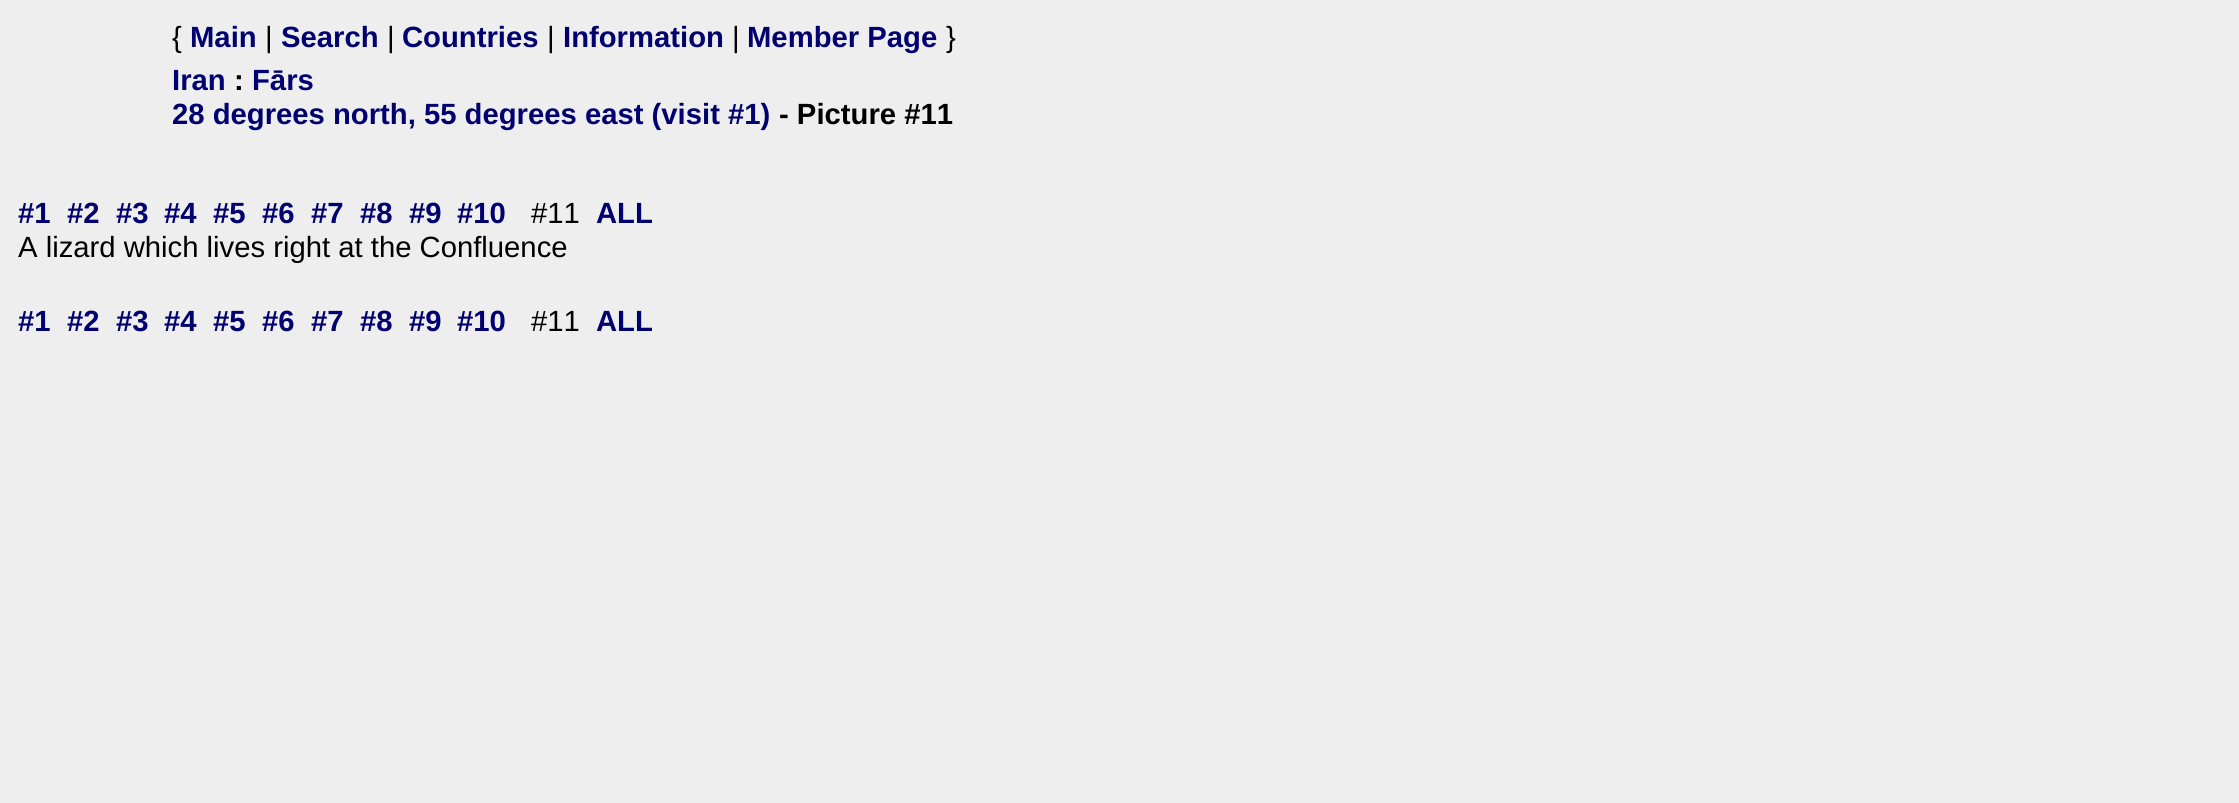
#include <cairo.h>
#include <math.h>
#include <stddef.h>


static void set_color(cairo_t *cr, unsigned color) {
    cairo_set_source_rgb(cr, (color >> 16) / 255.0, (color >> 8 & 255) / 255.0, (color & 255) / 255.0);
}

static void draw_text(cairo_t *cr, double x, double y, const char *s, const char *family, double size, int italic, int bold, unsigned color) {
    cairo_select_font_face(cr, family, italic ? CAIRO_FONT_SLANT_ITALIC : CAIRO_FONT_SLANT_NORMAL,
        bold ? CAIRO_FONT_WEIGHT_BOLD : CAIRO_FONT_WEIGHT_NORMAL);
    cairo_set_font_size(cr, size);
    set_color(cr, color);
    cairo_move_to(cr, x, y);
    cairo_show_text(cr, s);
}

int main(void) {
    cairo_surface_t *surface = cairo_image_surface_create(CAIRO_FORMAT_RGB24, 2239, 803);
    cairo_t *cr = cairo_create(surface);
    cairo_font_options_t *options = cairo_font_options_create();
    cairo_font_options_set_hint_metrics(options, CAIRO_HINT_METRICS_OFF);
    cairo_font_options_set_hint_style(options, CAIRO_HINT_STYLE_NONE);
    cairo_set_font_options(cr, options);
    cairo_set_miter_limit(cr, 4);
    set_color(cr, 0xEEEEEE);
    cairo_paint(cr);
    draw_text(cr, 172, 47, "{", "Liberation Sans", 29.25, 0, 0, 0x000000);
    draw_text(cr, 190, 47, "Main", "Liberation Sans", 29.25, 0, 1, 0x000070);
    draw_text(cr, 265, 47, "|", "Liberation Sans", 29.25, 0, 0, 0x000000);
    draw_text(cr, 281, 47, "Search", "Liberation Sans", 29.25, 0, 1, 0x000070);
    draw_text(cr, 387, 47, "|", "Liberation Sans", 29.25, 0, 0, 0x000000);
    draw_text(cr, 402, 47, "Countries", "Liberation Sans", 29.25, 0, 1, 0x000070);
    draw_text(cr, 547, 47, "|", "Liberation Sans", 29.25, 0, 0, 0x000000);
    draw_text(cr, 563, 47, "Information", "Liberation Sans", 29.25, 0, 1, 0x000070);
    draw_text(cr, 732, 47, "|", "Liberation Sans", 29.25, 0, 0, 0x000000);
    draw_text(cr, 747, 47, "Member Page", "Liberation Sans", 29.25, 0, 1, 0x000070);
    draw_text(cr, 946, 47, "}", "Liberation Sans", 29.25, 0, 0, 0x000000);
    draw_text(cr, 172, 90, "Iran", "Liberation Sans", 29.25, 0, 1, 0x000070);
    draw_text(cr, 234, 90, ":", "Liberation Sans", 29.25, 0, 1, 0x000000);
    draw_text(cr, 252, 90, "Fārs", "Liberation Sans", 29.25, 0, 1, 0x000070);
    draw_text(cr, 172, 124, "28 degrees north, 55 degrees east (visit #1)", "Liberation Sans", 29.25, 0, 1, 0x000070);
    draw_text(cr, 779, 124, "- Picture #11", "Liberation Sans", 29.25, 0, 1, 0x000000);
    draw_text(cr, 18, 223, "#1", "Liberation Sans", 29.25, 0, 1, 0x000070);
    draw_text(cr, 67, 223, "#2", "Liberation Sans", 29.25, 0, 1, 0x000070);
    draw_text(cr, 116, 223, "#3", "Liberation Sans", 29.25, 0, 1, 0x000070);
    draw_text(cr, 164, 223, "#4", "Liberation Sans", 29.25, 0, 1, 0x000070);
    draw_text(cr, 213, 223, "#5", "Liberation Sans", 29.25, 0, 1, 0x000070);
    draw_text(cr, 262, 223, "#6", "Liberation Sans", 29.25, 0, 1, 0x000070);
    draw_text(cr, 311, 223, "#7", "Liberation Sans", 29.25, 0, 1, 0x000070);
    draw_text(cr, 360, 223, "#8", "Liberation Sans", 29.25, 0, 1, 0x000070);
    draw_text(cr, 409, 223, "#9", "Liberation Sans", 29.25, 0, 1, 0x000070);
    draw_text(cr, 457, 223, "#10", "Liberation Sans", 29.25, 0, 1, 0x000070);
    draw_text(cr, 531, 223, "#11", "Liberation Sans", 29.25, 0, 0, 0x000000);
    draw_text(cr, 596, 223, "ALL", "Liberation Sans", 29.25, 0, 1, 0x000070);
    draw_text(cr, 18, 257, "A lizard which lives right at the Confluence", "Liberation Sans", 29.25, 0, 0, 0x000000);
    draw_text(cr, 18, 331, "#1", "Liberation Sans", 29.25, 0, 1, 0x000070);
    draw_text(cr, 67, 331, "#2", "Liberation Sans", 29.25, 0, 1, 0x000070);
    draw_text(cr, 116, 331, "#3", "Liberation Sans", 29.25, 0, 1, 0x000070);
    draw_text(cr, 164, 331, "#4", "Liberation Sans", 29.25, 0, 1, 0x000070);
    draw_text(cr, 213, 331, "#5", "Liberation Sans", 29.25, 0, 1, 0x000070);
    draw_text(cr, 262, 331, "#6", "Liberation Sans", 29.25, 0, 1, 0x000070);
    draw_text(cr, 311, 331, "#7", "Liberation Sans", 29.25, 0, 1, 0x000070);
    draw_text(cr, 360, 331, "#8", "Liberation Sans", 29.25, 0, 1, 0x000070);
    draw_text(cr, 409, 331, "#9", "Liberation Sans", 29.25, 0, 1, 0x000070);
    draw_text(cr, 457, 331, "#10", "Liberation Sans", 29.25, 0, 1, 0x000070);
    draw_text(cr, 531, 331, "#11", "Liberation Sans", 29.25, 0, 0, 0x000000);
    draw_text(cr, 596, 331, "ALL", "Liberation Sans", 29.25, 0, 1, 0x000070);
    cairo_surface_write_to_png(surface, "output.png");
    cairo_font_options_destroy(options);
    cairo_destroy(cr);
    cairo_surface_destroy(surface);
    return 0;
}
